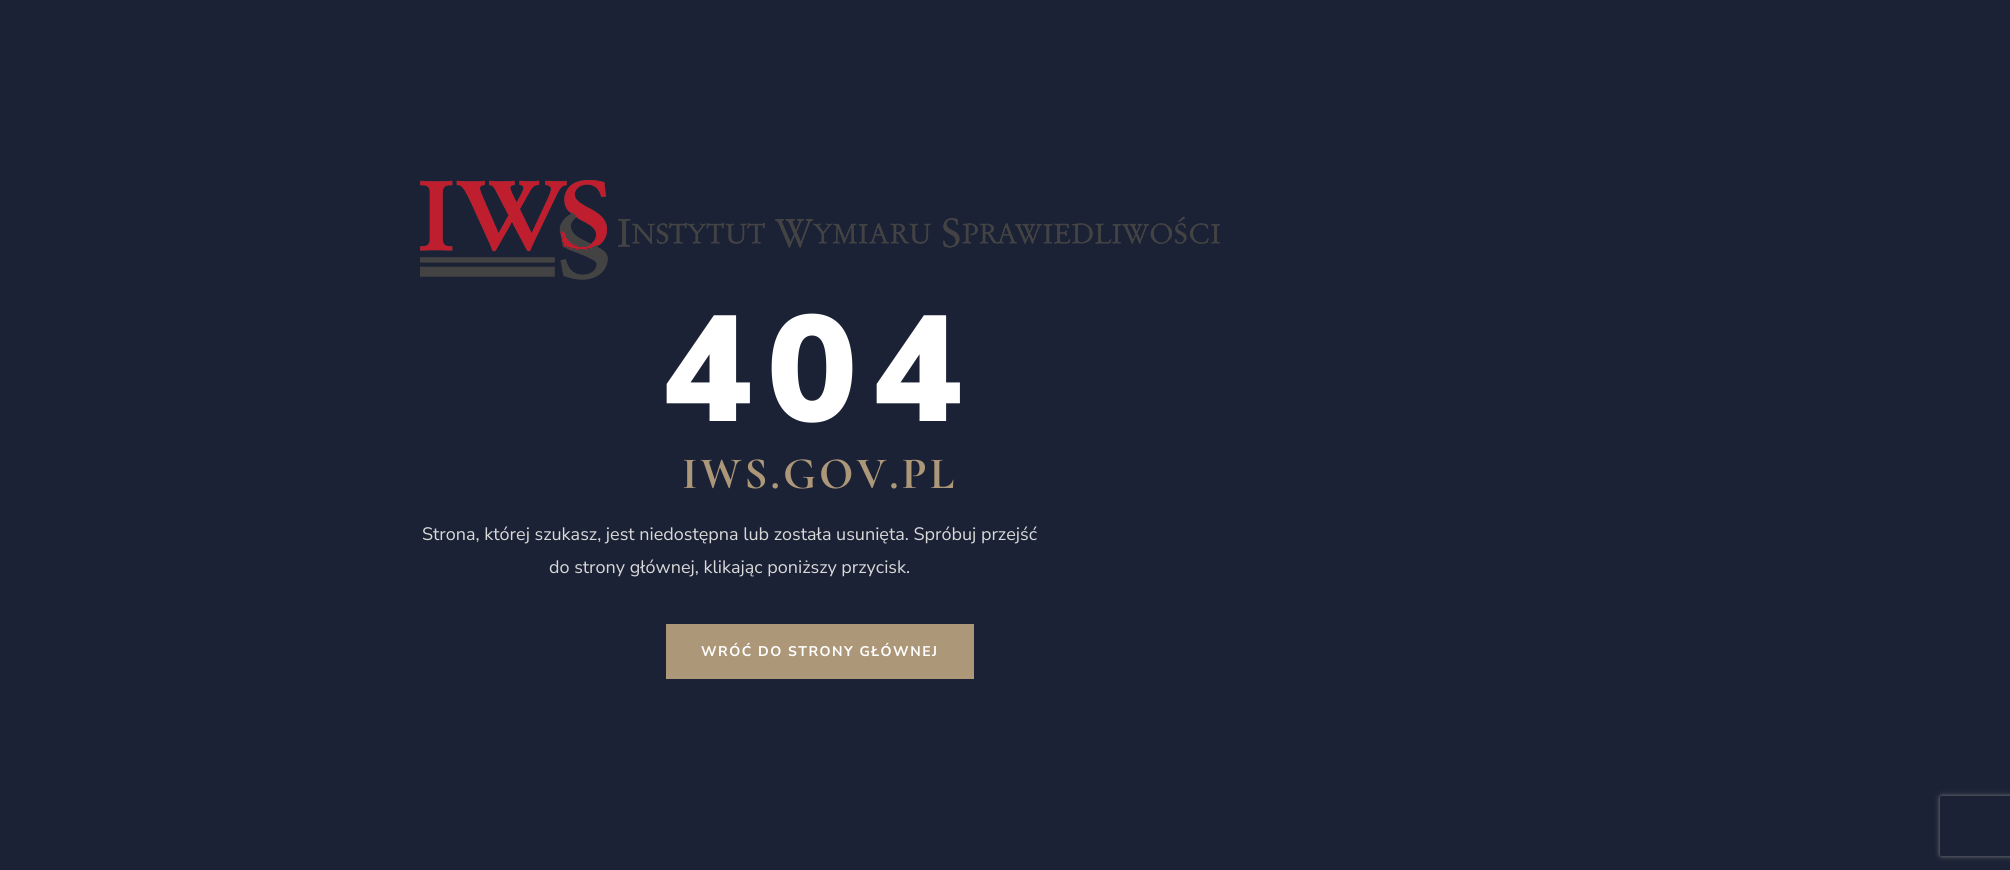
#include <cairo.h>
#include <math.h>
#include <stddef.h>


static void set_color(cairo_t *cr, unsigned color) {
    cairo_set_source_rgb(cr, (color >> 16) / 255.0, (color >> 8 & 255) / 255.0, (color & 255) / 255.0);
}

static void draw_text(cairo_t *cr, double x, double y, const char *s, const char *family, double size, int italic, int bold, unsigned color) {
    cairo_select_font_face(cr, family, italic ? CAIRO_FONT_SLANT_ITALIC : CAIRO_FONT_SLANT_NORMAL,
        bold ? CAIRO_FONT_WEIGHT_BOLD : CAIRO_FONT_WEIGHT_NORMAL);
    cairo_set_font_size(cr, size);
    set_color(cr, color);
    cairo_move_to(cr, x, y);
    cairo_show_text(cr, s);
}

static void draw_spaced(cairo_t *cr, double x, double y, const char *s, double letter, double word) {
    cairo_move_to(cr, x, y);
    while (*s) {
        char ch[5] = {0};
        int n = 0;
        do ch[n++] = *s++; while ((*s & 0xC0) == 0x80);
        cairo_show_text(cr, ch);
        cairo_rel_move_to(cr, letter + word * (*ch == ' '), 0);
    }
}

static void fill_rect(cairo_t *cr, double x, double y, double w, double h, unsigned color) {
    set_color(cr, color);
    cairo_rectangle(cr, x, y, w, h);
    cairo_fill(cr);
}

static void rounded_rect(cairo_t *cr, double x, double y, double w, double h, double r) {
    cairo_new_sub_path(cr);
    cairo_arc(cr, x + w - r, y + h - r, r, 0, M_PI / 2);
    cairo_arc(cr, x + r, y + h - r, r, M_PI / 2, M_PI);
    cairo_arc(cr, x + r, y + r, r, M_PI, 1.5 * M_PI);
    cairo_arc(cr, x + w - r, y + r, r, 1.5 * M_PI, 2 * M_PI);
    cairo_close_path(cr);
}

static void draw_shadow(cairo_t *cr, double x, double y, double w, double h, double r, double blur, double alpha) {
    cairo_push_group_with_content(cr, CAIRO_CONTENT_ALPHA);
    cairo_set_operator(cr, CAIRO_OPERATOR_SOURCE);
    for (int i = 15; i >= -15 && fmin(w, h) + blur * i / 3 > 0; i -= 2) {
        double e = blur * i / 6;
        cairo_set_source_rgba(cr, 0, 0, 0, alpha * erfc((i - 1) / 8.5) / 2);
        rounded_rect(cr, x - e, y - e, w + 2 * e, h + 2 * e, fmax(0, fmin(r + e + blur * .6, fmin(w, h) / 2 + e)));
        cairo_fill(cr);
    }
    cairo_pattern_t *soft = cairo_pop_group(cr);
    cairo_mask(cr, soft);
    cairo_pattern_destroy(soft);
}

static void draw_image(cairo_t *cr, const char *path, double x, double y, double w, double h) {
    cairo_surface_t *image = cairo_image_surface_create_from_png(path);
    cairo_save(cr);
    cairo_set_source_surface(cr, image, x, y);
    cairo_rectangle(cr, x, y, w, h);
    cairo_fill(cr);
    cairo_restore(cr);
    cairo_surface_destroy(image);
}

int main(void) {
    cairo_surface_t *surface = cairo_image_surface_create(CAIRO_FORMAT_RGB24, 2010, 870);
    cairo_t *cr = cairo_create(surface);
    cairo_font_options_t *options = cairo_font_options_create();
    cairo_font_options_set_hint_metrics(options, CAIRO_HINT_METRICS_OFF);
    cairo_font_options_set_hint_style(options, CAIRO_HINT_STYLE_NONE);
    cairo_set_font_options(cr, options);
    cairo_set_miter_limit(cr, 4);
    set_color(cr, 0x1B2235);
    cairo_paint(cr);
    draw_image(cr, "assets/img1.png", 420, 180, 800, 100);
    cairo_select_font_face(cr, "Nunito Sans Black", CAIRO_FONT_SLANT_NORMAL, CAIRO_FONT_WEIGHT_NORMAL);
    cairo_set_font_size(cr, 150);
    set_color(cr, 0xFFFFFF);
    draw_spaced(cr, 662, 421, "404", 15, 0);
    cairo_select_font_face(cr, "Cormorant Infant", CAIRO_FONT_SLANT_NORMAL, CAIRO_FONT_WEIGHT_BOLD);
    cairo_set_font_size(cr, 45);
    set_color(cr, 0xAD9779);
    draw_spaced(cr, 682, 488, "IWS.GOV.PL", 3.1, 0);
    draw_text(cr, 422, 540, "Strona, której szukasz, jest niedostępna lub została usunięta. Spróbuj przejść", "Nunito Sans", 18, 0, 0, 0xD9D9D9);
    draw_text(cr, 549, 573, "do strony głównej, klikając poniższy przycisk.", "Nunito Sans", 18, 0, 0, 0xD9D9D9);
    fill_rect(cr, 666, 624, 308, 55, 0xAD9779);
    cairo_select_font_face(cr, "Nunito Sans", CAIRO_FONT_SLANT_NORMAL, CAIRO_FONT_WEIGHT_BOLD);
    cairo_set_font_size(cr, 14);
    set_color(cr, 0xFFFFFF);
    draw_spaced(cr, 701, 656, "WRÓĆ DO STRONY GŁÓWNEJ", 1.5, 0);
    cairo_save(cr);
    cairo_set_fill_rule(cr, CAIRO_FILL_RULE_EVEN_ODD);
    cairo_new_path(cr);
    cairo_move_to(cr, 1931, 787);
    cairo_line_to(cr, 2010, 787);
    cairo_line_to(cr, 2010, 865);
    cairo_line_to(cr, 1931, 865);
    cairo_close_path(cr);
    cairo_move_to(cr, 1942, 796);
    cairo_line_to(cr, 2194, 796);
    cairo_curve_to(cr, 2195, 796, 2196, 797, 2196, 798);
    cairo_line_to(cr, 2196, 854);
    cairo_curve_to(cr, 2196, 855, 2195, 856, 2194, 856);
    cairo_line_to(cr, 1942, 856);
    cairo_curve_to(cr, 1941, 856, 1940, 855, 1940, 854);
    cairo_line_to(cr, 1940, 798);
    cairo_curve_to(cr, 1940, 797, 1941, 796, 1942, 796);
    cairo_close_path(cr);
    cairo_clip(cr);
    set_color(cr, 0x808080);
    draw_shadow(cr, 1940, 796, 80, 60, 2, 2.5, 1);
    cairo_restore(cr);
    cairo_surface_write_to_png(surface, "output.png");
    cairo_font_options_destroy(options);
    cairo_destroy(cr);
    cairo_surface_destroy(surface);
    return 0;
}
